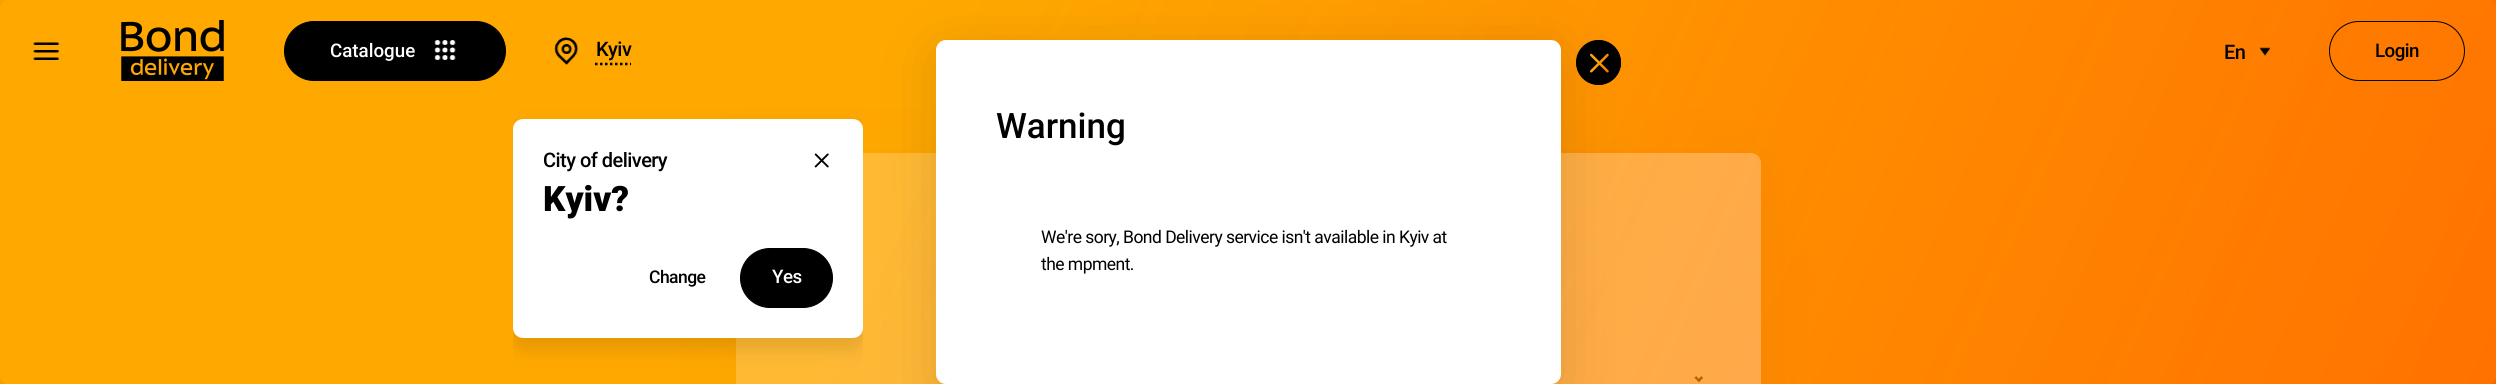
#include <cairo.h>
#include <math.h>
#include <stddef.h>


static void set_color(cairo_t *cr, unsigned color) {
    cairo_set_source_rgb(cr, (color >> 16) / 255.0, (color >> 8 & 255) / 255.0, (color & 255) / 255.0);
}

static void draw_text(cairo_t *cr, double x, double y, const char *s, const char *family, double size, int italic, int bold, unsigned color) {
    cairo_select_font_face(cr, family, italic ? CAIRO_FONT_SLANT_ITALIC : CAIRO_FONT_SLANT_NORMAL,
        bold ? CAIRO_FONT_WEIGHT_BOLD : CAIRO_FONT_WEIGHT_NORMAL);
    cairo_set_font_size(cr, size);
    set_color(cr, color);
    cairo_move_to(cr, x, y);
    cairo_show_text(cr, s);
}

static void draw_spaced(cairo_t *cr, double x, double y, const char *s, double letter, double word) {
    cairo_move_to(cr, x, y);
    while (*s) {
        char ch[5] = {0};
        int n = 0;
        do ch[n++] = *s++; while ((*s & 0xC0) == 0x80);
        cairo_show_text(cr, ch);
        cairo_rel_move_to(cr, letter + word * (*ch == ' '), 0);
    }
}

static void rounded_rect(cairo_t *cr, double x, double y, double w, double h, double r) {
    cairo_new_sub_path(cr);
    cairo_arc(cr, x + w - r, y + h - r, r, 0, M_PI / 2);
    cairo_arc(cr, x + r, y + h - r, r, M_PI / 2, M_PI);
    cairo_arc(cr, x + r, y + r, r, M_PI, 1.5 * M_PI);
    cairo_arc(cr, x + w - r, y + r, r, 1.5 * M_PI, 2 * M_PI);
    cairo_close_path(cr);
}

static void draw_shadow(cairo_t *cr, double x, double y, double w, double h, double r, double blur, double alpha) {
    cairo_push_group_with_content(cr, CAIRO_CONTENT_ALPHA);
    cairo_set_operator(cr, CAIRO_OPERATOR_SOURCE);
    for (int i = 15; i >= -15 && fmin(w, h) + blur * i / 3 > 0; i -= 2) {
        double e = blur * i / 6;
        cairo_set_source_rgba(cr, 0, 0, 0, alpha * erfc((i - 1) / 8.5) / 2);
        rounded_rect(cr, x - e, y - e, w + 2 * e, h + 2 * e, fmax(0, fmin(r + e + blur * .6, fmin(w, h) / 2 + e)));
        cairo_fill(cr);
    }
    cairo_pattern_t *soft = cairo_pop_group(cr);
    cairo_mask(cr, soft);
    cairo_pattern_destroy(soft);
}

static void draw_image(cairo_t *cr, const char *path, double x, double y, double w, double h) {
    cairo_surface_t *image = cairo_image_surface_create_from_png(path);
    cairo_save(cr);
    cairo_set_source_surface(cr, image, x, y);
    cairo_rectangle(cr, x, y, w, h);
    cairo_fill(cr);
    cairo_restore(cr);
    cairo_surface_destroy(image);
}

int main(void) {
    cairo_surface_t *surface = cairo_image_surface_create(CAIRO_FORMAT_RGB24, 2496, 384);
    cairo_t *cr = cairo_create(surface);
    cairo_font_options_t *options = cairo_font_options_create();
    cairo_font_options_set_hint_metrics(options, CAIRO_HINT_METRICS_OFF);
    cairo_font_options_set_hint_style(options, CAIRO_HINT_STYLE_NONE);
    cairo_set_font_options(cr, options);
    cairo_set_miter_limit(cr, 4);
    cairo_pattern_t *gradient;
    set_color(cr, 0xFFFFFF);
    cairo_paint(cr);
    gradient = cairo_pattern_create_linear(-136, 303, 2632, 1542);
    cairo_pattern_add_color_stop_rgba(gradient, 0.36, 1, 0.659, 0, 1);
    cairo_pattern_add_color_stop_rgba(gradient, 1, 1, 0.42, 0, 1);
    cairo_set_source(cr, gradient);
    cairo_pattern_destroy(gradient);
    cairo_rectangle(cr, 0, 0, 2496, 384);
    cairo_fill(cr);
    set_color(cr, 0x000000);
    draw_shadow(cr, 736, 163, 1025, 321, 10, 30, 0.12);
    set_color(cr, 0xFFFFFF);
    rounded_rect(cr, 736, 153, 1025, 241, 10);
    cairo_fill(cr);
    set_color(cr, 0x000000);
    cairo_new_path(cr);
    cairo_move_to(cr, 1697, 380.5);
    cairo_line_to(cr, 1701.5, 376);
    cairo_line_to(cr, 1703, 378);
    cairo_line_to(cr, 1699, 382);
    cairo_close_path(cr);
    cairo_fill(cr);
    cairo_new_path(cr);
    cairo_move_to(cr, 1694.5, 378);
    cairo_line_to(cr, 1696, 376);
    cairo_line_to(cr, 1700.5, 380.5);
    cairo_line_to(cr, 1699, 382);
    cairo_close_path(cr);
    cairo_fill(cr);
    gradient = cairo_pattern_create_linear(137, -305, 2359, 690);
    cairo_pattern_add_color_stop_rgba(gradient, 0.36, 1, 0.659, 0, 0.8);
    cairo_pattern_add_color_stop_rgba(gradient, 1, 1, 0.42, 0, 0.64);
    cairo_set_source(cr, gradient);
    cairo_pattern_destroy(gradient);
    cairo_rectangle(cr, 699, 0, 1797, 384);
    cairo_fill(cr);
    draw_image(cr, "assets/img1.png", 33, 42, 27, 18);
    draw_image(cr, "assets/img2.png", 121, 20, 103, 32);
    draw_image(cr, "assets/img3.png", 121, 56, 103, 25);
    set_color(cr, 0x000000);
    rounded_rect(cr, 284.5, 21.5, 221, 59, 29.5);
    cairo_fill_preserve(cr);
    cairo_set_line_width(cr, 1);
    cairo_stroke(cr);
    draw_text(cr, 330, 57, "Catalogue", "Roboto Medium", 18.75, 0, 0, 0xFFFFFF);
    draw_image(cr, "assets/img4.png", 434, 40, 22, 20);
    draw_image(cr, "assets/img5.png", 554, 37, 25, 28);
    cairo_new_path(cr);
    cairo_move_to(cr, 595, 64);
    cairo_line_to(cr, 631, 64);
    set_color(cr, 0x000000);
    cairo_set_line_width(cr, 2.5);
    cairo_set_dash(cr, (double[]){2.5, 2.5}, 2, 0);
    cairo_stroke(cr);
    cairo_set_font_size(cr, 20);
    draw_spaced(cr, 596, 56, "Kyiv", -0.53, 0);
    draw_spaced(cr, 2224, 59, "En", -0.53, 0);
    draw_image(cr, "assets/img6.png", 2259, 47, 12, 9);
    rounded_rect(cr, 2329.5, 21.5, 135, 59, 29.5);
    cairo_set_line_width(cr, 1);
    cairo_set_dash(cr, NULL, 0, 0);
    cairo_stroke(cr);
    cairo_set_font_size(cr, 18.75);
    draw_spaced(cr, 2375, 57, "Login", -0.53, 0);
    cairo_save(cr);
    rounded_rect(cr, 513, 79, 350, 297, 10);
    cairo_clip(cr);
    set_color(cr, 0x000000);
    draw_shadow(cr, 513, 129, 350, 219, 10, 11, 0.12);
    cairo_restore(cr);
    cairo_save(cr);
    cairo_set_fill_rule(cr, CAIRO_FILL_RULE_EVEN_ODD);
    cairo_new_path(cr);
    cairo_move_to(cr, 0, 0);
    cairo_line_to(cr, 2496, 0);
    cairo_line_to(cr, 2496, 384);
    cairo_line_to(cr, 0, 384);
    cairo_close_path(cr);
    cairo_move_to(cr, 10, 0);
    cairo_line_to(cr, 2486, 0);
    cairo_curve_to(cr, 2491.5, 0, 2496, 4.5, 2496, 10);
    cairo_line_to(cr, 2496, 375);
    cairo_curve_to(cr, 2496, 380.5, 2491.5, 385, 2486, 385);
    cairo_line_to(cr, 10, 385);
    cairo_curve_to(cr, 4.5, 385, 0, 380.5, 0, 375);
    cairo_line_to(cr, 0, 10);
    cairo_curve_to(cr, 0, 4.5, 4.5, 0, 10, 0);
    cairo_close_path(cr);
    cairo_clip(cr);
    set_color(cr, 0x000000);
    draw_shadow(cr, 0, 10, 2496, 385, 10, 30, 0.12);
    cairo_restore(cr);
    set_color(cr, 0x000000);
    draw_shadow(cr, 936, 50, 625, 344, 10, 30, 0.12);
    set_color(cr, 0xFFFFFF);
    rounded_rect(cr, 513, 119, 350, 219, 10);
    cairo_fill(cr);
    cairo_set_font_size(cr, 20);
    set_color(cr, 0x000000);
    draw_spaced(cr, 543, 167, "City of delivery", -0.53, 0);
    draw_image(cr, "assets/img7.png", 814, 153, 15, 15);
    draw_text(cr, 543, 211, "Kyiv?", "Roboto Black", 35, 0, 0, 0x000000);
    cairo_select_font_face(cr, "Roboto Medium", CAIRO_FONT_SLANT_NORMAL, CAIRO_FONT_WEIGHT_NORMAL);
    cairo_set_font_size(cr, 17.5);
    draw_spaced(cr, 649, 283, "Change", -0.53, 0);
    rounded_rect(cr, 740.5, 248.5, 92, 59, 29.5);
    cairo_fill_preserve(cr);
    cairo_stroke(cr);
    cairo_set_font_size(cr, 18.75);
    set_color(cr, 0xFFFFFF);
    draw_spaced(cr, 772, 283, "Yes", -0.53, 0);
    rounded_rect(cr, 936, 40, 625, 344, 10);
    cairo_fill(cr);
    set_color(cr, 0x000000);
    cairo_arc(cr, 1598.5, 62.5, 22.5, 0, 2 * M_PI);
    cairo_fill(cr);
    draw_image(cr, "assets/img8.png", 1576, 40, 45, 45);
    draw_text(cr, 996, 138, "Warning", "Roboto Medium", 35, 0, 0, 0x000000);
    cairo_select_font_face(cr, "Roboto", CAIRO_FONT_SLANT_NORMAL, CAIRO_FONT_WEIGHT_NORMAL);
    cairo_set_font_size(cr, 17.5);
    draw_spaced(cr, 1041, 243, "We're sory, Bond Delivery service isn't available in Kyiv at", -0.53, 0);
    draw_spaced(cr, 1041, 270, "the mpment.", -0.53, 0);
    cairo_surface_write_to_png(surface, "output.png");
    cairo_font_options_destroy(options);
    cairo_destroy(cr);
    cairo_surface_destroy(surface);
    return 0;
}
